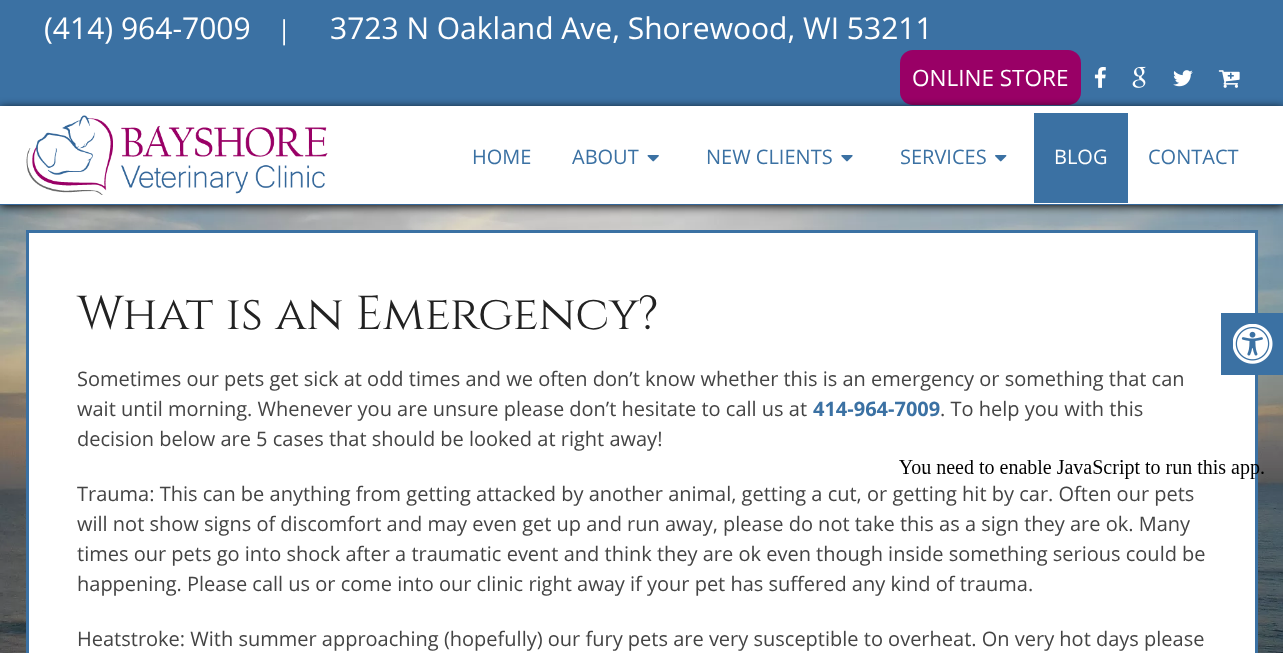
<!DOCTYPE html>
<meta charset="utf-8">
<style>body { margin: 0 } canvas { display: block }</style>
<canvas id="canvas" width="1283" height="653"></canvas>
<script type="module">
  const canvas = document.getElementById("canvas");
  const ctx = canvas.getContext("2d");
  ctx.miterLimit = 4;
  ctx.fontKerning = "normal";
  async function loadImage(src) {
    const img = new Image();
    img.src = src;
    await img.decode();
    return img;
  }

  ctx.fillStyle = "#ffffff";
  ctx.fillRect(0, 0, 1283, 653);
  ctx.drawImage(await loadImage("img1.png"), 0, 205, 1283, 448);
  ctx.fillStyle = "#3b71a3";
  ctx.fillRect(0, 0, 1283, 106);
  ctx.font = "30px Open Sans";
  ctx.fillStyle = "#ffffff";
  ctx.fillText("(414) 964-7009", 44, 39);
  ctx.font = "26px Open Sans";
  ctx.fillText("|", 277, 39);
  ctx.font = "30px Open Sans";
  ctx.fillText("3723 N Oakland Ave, Shorewood, WI 53211", 330, 39);
  ctx.fillStyle = "#990066";
  ctx.beginPath();
  ctx.roundRect(900, 50, 181, 55, 13);
  ctx.fill();
  ctx.font = "22.5px Open Sans";
  ctx.fillStyle = "#ffffff";
  ctx.fillText("ONLINE STORE", 912, 86);
  ctx.drawImage(await loadImage("img2.png"), 1094, 67, 12, 21);
  ctx.drawImage(await loadImage("img3.png"), 1132, 66, 14, 22);
  ctx.drawImage(await loadImage("img4.png"), 1173, 70, 20, 17);
  ctx.drawImage(await loadImage("img5.png"), 1218, 70, 22, 18);
  ctx.fillStyle = "#000000";
  ctx.filter = "blur(5px)";
  ctx.beginPath();
  ctx.rect(0, 108, 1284, 98);
  ctx.fill();
  ctx.filter = "none";
  ctx.fillStyle = "#ffffff";
  ctx.fillRect(0, 106, 1283, 98);
  ctx.fillStyle = "#336699";
  ctx.fillRect(0, 204, 1283, 1);
  ctx.drawImage(await loadImage("img6.png"), 26, 115, 302, 80);
  ctx.font = "20px Open Sans";
  ctx.fillStyle = "#3b71a3";
  ctx.fillText("HOME", 472, 164);
  ctx.fillText("ABOUT", 572, 164);
  ctx.drawImage(await loadImage("img7.png"), 647, 155, 12, 7);
  ctx.fillText("NEW CLIENTS", 706, 164);
  ctx.drawImage(await loadImage("img8.png"), 841, 155, 12, 7);
  ctx.fillText("SERVICES", 900, 164);
  ctx.drawImage(await loadImage("img9.png"), 995, 155, 12, 7);
  ctx.fillRect(1034, 113, 94, 90);
  ctx.fillStyle = "#ffffff";
  ctx.fillText("BLOG", 1054, 164);
  ctx.fillStyle = "#3b71a3";
  ctx.fillText("CONTACT", 1148, 164);
  ctx.fillStyle = "#ffffff";
  ctx.beginPath();
  ctx.rect(27.5, 231.5, 1229, 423);
  ctx.fill();
  ctx.strokeStyle = "#3b71a3";
  ctx.lineWidth = 3;
  ctx.stroke();
  ctx.font = "47.5px Cinzel";
  ctx.fillStyle = "#222222";
  ctx.fillText("What is an Emergency?", 77, 329);
  ctx.font = "20px Open Sans";
  ctx.fillStyle = "#444444";
  ctx.fillText("Sometimes our pets get sick at odd times and we often don’t know whether this is an emergency or something that can", 77, 386);
  ctx.fillText("wait until morning. Whenever you are unsure please don’t hesitate to call us at", 77, 416);
  ctx.font = "bold 20px Open Sans";
  ctx.fillStyle = "#3b71a3";
  ctx.fillText("414-964-7009", 813, 416);
  ctx.font = "20px Open Sans";
  ctx.fillStyle = "#444444";
  ctx.fillText(". To help you with this", 940, 416);
  ctx.fillText("decision below are 5 cases that should be looked at right away!", 77, 446);
  ctx.fillText("Trauma: This can be anything from getting attacked by another animal, getting a cut, or getting hit by car. Often our pets", 77, 501);
  ctx.fillText("will not show signs of discomfort and may even get up and run away, please do not take this as a sign they are ok. Many", 77, 531);
  ctx.fillText("times our pets go into shock after a traumatic event and think they are ok even though inside something serious could be", 77, 561);
  ctx.fillText("happening. Please call us or come into our clinic right away if your pet has suffered any kind of trauma.", 77, 591);
  ctx.fillText("Heatstroke: With summer approaching (hopefully) our fury pets are very susceptible to overheat. On very hot days please", 77, 646);
  ctx.fillStyle = "#3b71a3";
  ctx.fillRect(1221, 313, 62, 62);
  ctx.drawImage(await loadImage("img10.png"), 1233, 324, 40, 40);
  ctx.drawImage(await loadImage("img11.png"), 899, 460, 365, 19);
</script>
